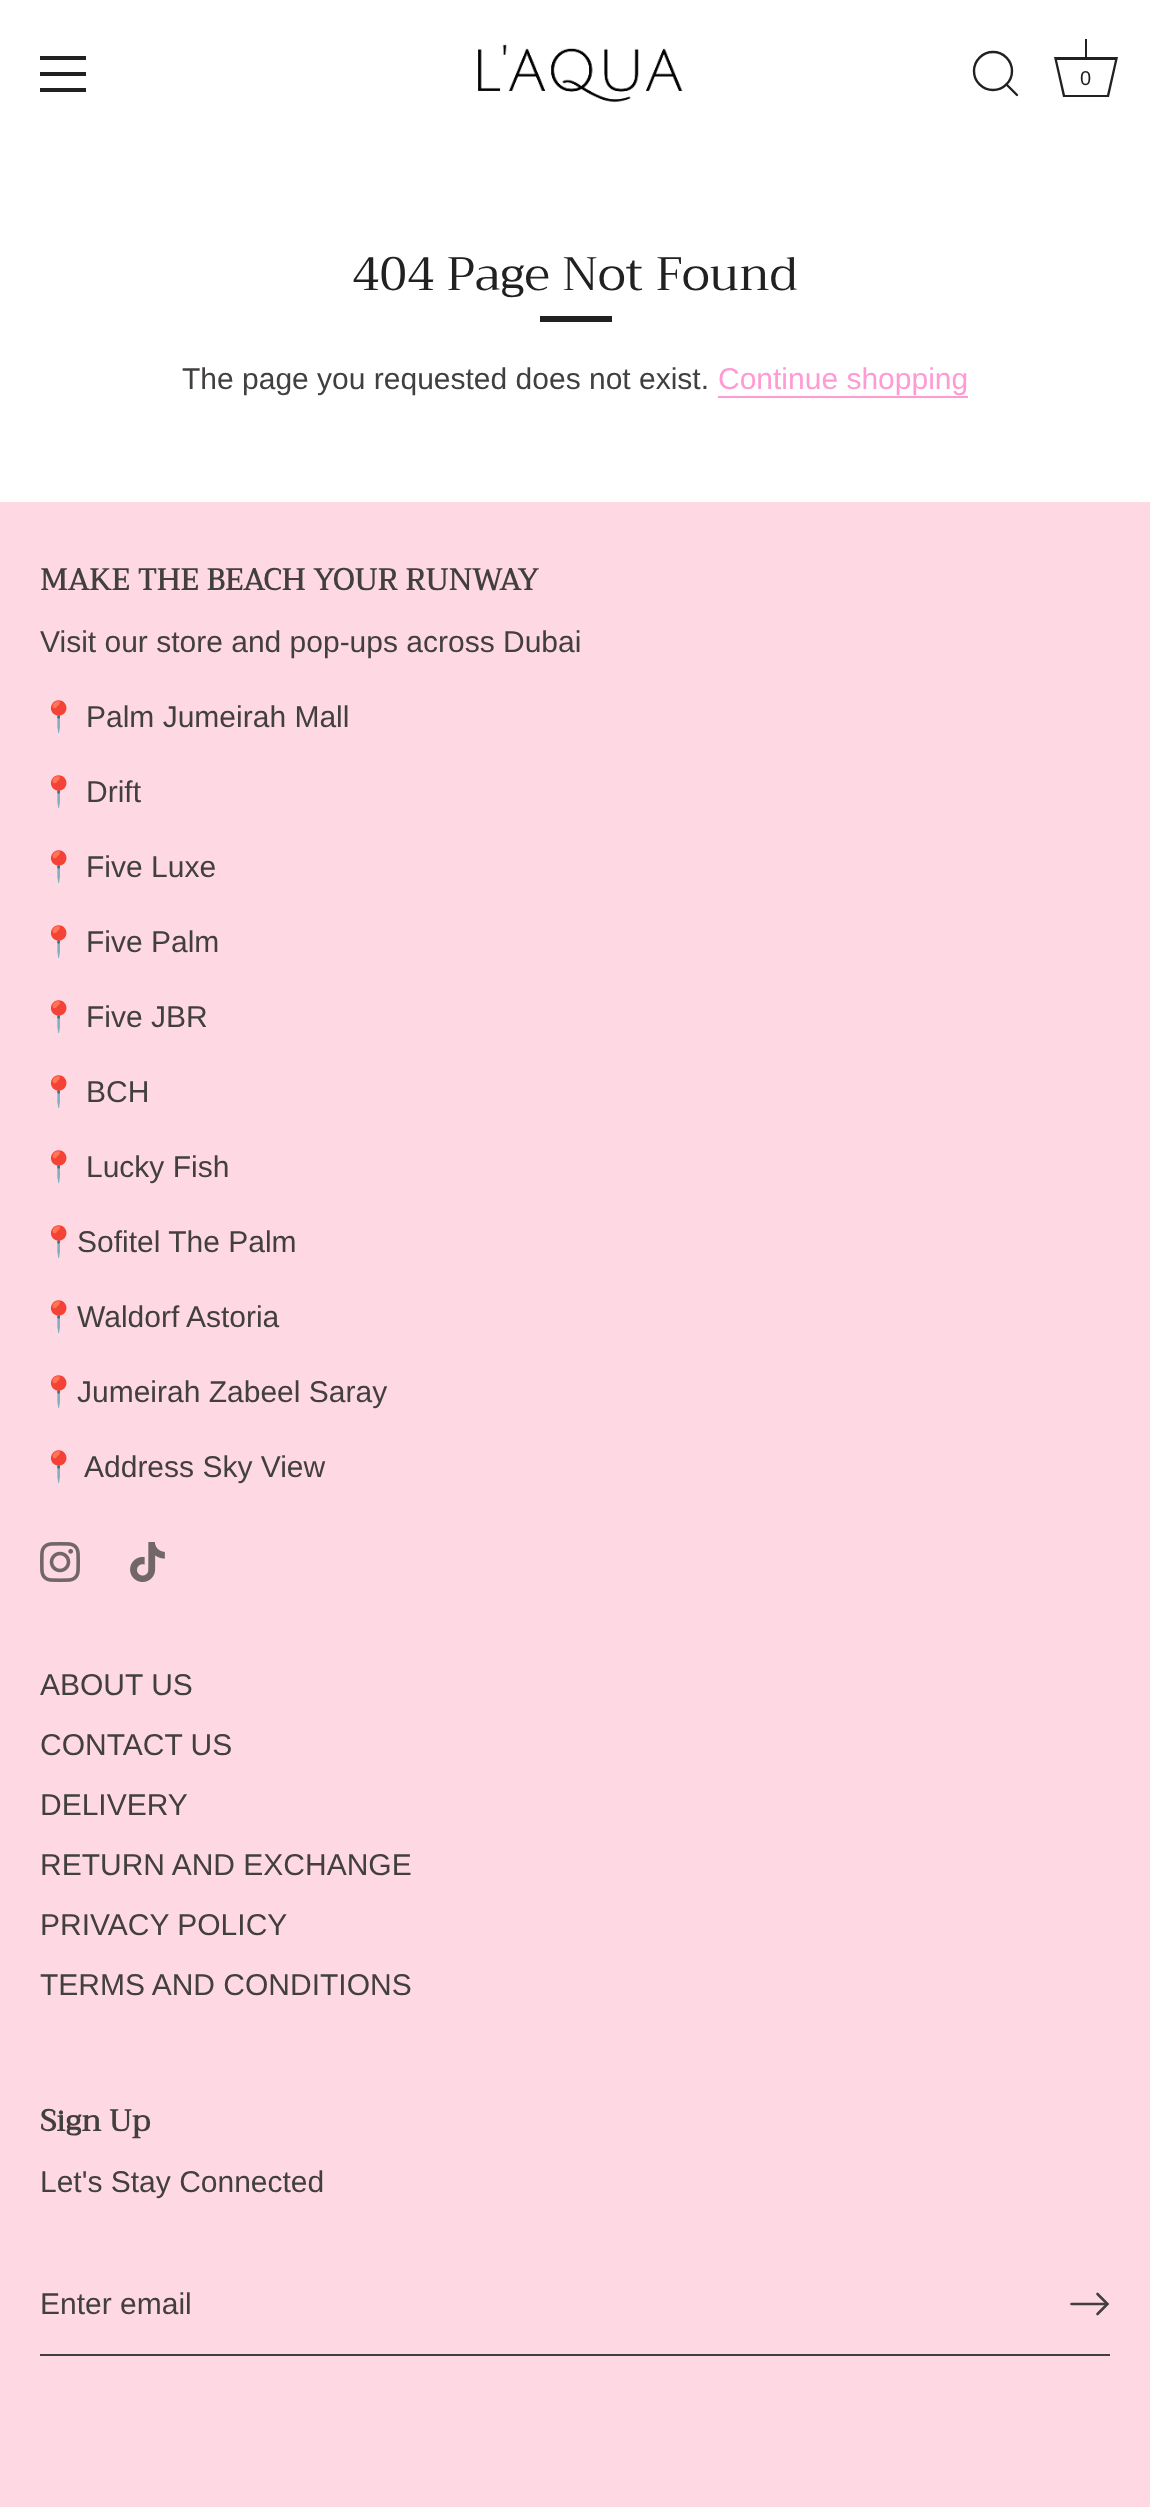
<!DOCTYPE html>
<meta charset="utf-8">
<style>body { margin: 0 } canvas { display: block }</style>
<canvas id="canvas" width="1150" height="2507"></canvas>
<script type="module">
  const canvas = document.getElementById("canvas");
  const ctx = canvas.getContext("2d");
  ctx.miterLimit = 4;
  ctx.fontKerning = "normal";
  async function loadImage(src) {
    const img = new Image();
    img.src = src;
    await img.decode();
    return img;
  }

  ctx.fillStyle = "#ffffff";
  ctx.fillRect(0, 0, 1150, 2507);
  ctx.fillStyle = "#212121";
  ctx.fillRect(40, 56, 46, 4);
  ctx.fillRect(40, 72, 46, 4);
  ctx.fillRect(40, 88, 46, 4);
  ctx.drawImage(await loadImage("img1.png"), 478, 44, 205, 59);
  ctx.beginPath();
  ctx.arc(993, 71, 19, 0, Math.PI * 2);
  ctx.strokeStyle = "#212121";
  ctx.lineWidth = 2.4;
  ctx.stroke();
  ctx.beginPath();
  ctx.moveTo(1017, 95);
  ctx.lineTo(1006.5, 84.5);
  ctx.lineCap = "round";
  ctx.lineJoin = "round";
  ctx.stroke();
  ctx.fillRect(1085, 39, 2, 18);
  ctx.beginPath();
  ctx.moveTo(1115, 60);
  ctx.lineTo(1107, 95);
  ctx.lineTo(1065, 95);
  ctx.lineTo(1057, 60);
  ctx.lineTo(1115, 60);
  ctx.moveTo(1118, 57);
  ctx.lineTo(1054, 57);
  ctx.lineTo(1063, 97);
  ctx.lineTo(1109, 97);
  ctx.closePath();
  ctx.fill();
  ctx.font = "20px Liberation Sans";
  ctx.fillText("0", 1080, 85);
  ctx.font = "46.75px Trirong";
  ctx.fillText("404 Page Not Found", 352, 290);
  ctx.fillRect(540, 316, 72, 6);
  ctx.font = "30px Liberation Sans";
  ctx.fillStyle = "#423f3f";
  ctx.fillText("The page you requested does not exist.", 182, 389);
  ctx.fillStyle = "#ff9ad4";
  ctx.fillText("Continue shopping", 718, 389);
  ctx.fillRect(718, 396, 250, 2);
  ctx.fillStyle = "#fed9e3";
  ctx.fillRect(0, 502, 1150, 2005);
  ctx.font = "bold 30px Trirong";
  ctx.fillStyle = "#423f3f";
  ctx.fillText("MAKE THE BEACH YOUR RUNWAY", 40, 590);
  ctx.font = "30px Liberation Sans";
  ctx.fillText("Visit our store and pop-ups across Dubai", 40, 652);
  ctx.font = "30px Noto Color Emoji";
  ctx.fillText("📍", 40, 727);
  ctx.font = "30px Liberation Sans";
  ctx.fillText("Palm Jumeirah Mall", 86, 727);
  ctx.font = "30px Noto Color Emoji";
  ctx.fillText("📍", 40, 802);
  ctx.font = "30px Liberation Sans";
  ctx.fillText("Drift", 86, 802);
  ctx.font = "30px Noto Color Emoji";
  ctx.fillText("📍", 40, 877);
  ctx.font = "30px Liberation Sans";
  ctx.fillText("Five Luxe", 86, 877);
  ctx.font = "30px Noto Color Emoji";
  ctx.fillText("📍", 40, 952);
  ctx.font = "30px Liberation Sans";
  ctx.fillText("Five Palm", 86, 952);
  ctx.font = "30px Noto Color Emoji";
  ctx.fillText("📍", 40, 1027);
  ctx.font = "30px Liberation Sans";
  ctx.fillText("Five JBR", 86, 1027);
  ctx.font = "30px Noto Color Emoji";
  ctx.fillText("📍", 40, 1102);
  ctx.font = "30px Liberation Sans";
  ctx.fillText("BCH", 86, 1102);
  ctx.font = "30px Noto Color Emoji";
  ctx.fillText("📍", 40, 1177);
  ctx.font = "30px Liberation Sans";
  ctx.fillText("Lucky Fish", 86, 1177);
  ctx.font = "30px Noto Color Emoji";
  ctx.fillText("📍", 40, 1252);
  ctx.font = "30px Liberation Sans";
  ctx.fillText("Sofitel The Palm", 77, 1252);
  ctx.font = "30px Noto Color Emoji";
  ctx.fillText("📍", 40, 1327);
  ctx.font = "30px Liberation Sans";
  ctx.fillText("Waldorf Astoria", 77, 1327);
  ctx.font = "30px Noto Color Emoji";
  ctx.fillText("📍", 40, 1402);
  ctx.font = "30px Liberation Sans";
  ctx.fillText("Jumeirah Zabeel Saray", 77, 1402);
  ctx.font = "30px Noto Color Emoji";
  ctx.fillText("📍", 40, 1477);
  ctx.font = "30px Liberation Sans";
  ctx.fillText("Address Sky View", 84, 1477);
  ctx.drawImage(await loadImage("img2.png"), 40, 1542, 40, 40);
  ctx.drawImage(await loadImage("img3.png"), 130, 1542, 35, 40);
  ctx.fillText("ABOUT US", 40, 1695);
  ctx.fillText("CONTACT US", 40, 1755);
  ctx.fillText("DELIVERY", 40, 1815);
  ctx.fillText("RETURN AND EXCHANGE", 40, 1875);
  ctx.fillText("PRIVACY POLICY", 40, 1935);
  ctx.fillText("TERMS AND CONDITIONS", 40, 1995);
  ctx.font = "bold 30px Trirong";
  ctx.fillText("Sign Up", 40, 2131);
  ctx.font = "30px Liberation Sans";
  ctx.fillText("Let's Stay Connected", 40, 2192);
  ctx.fillRect(40, 2354, 1070, 2);
  ctx.fillText("Enter email", 40, 2314);
  ctx.beginPath();
  ctx.moveTo(1097.5, 2314);
  ctx.lineTo(1107.5, 2304);
  ctx.lineTo(1097.5, 2294);
  ctx.strokeStyle = "#423f3f";
  ctx.lineWidth = 2.6;
  ctx.lineJoin = "miter";
  ctx.stroke();
  ctx.beginPath();
  ctx.moveTo(1106.5, 2304);
  ctx.lineTo(1071.5, 2304);
  ctx.lineJoin = "round";
  ctx.stroke();
</script>
